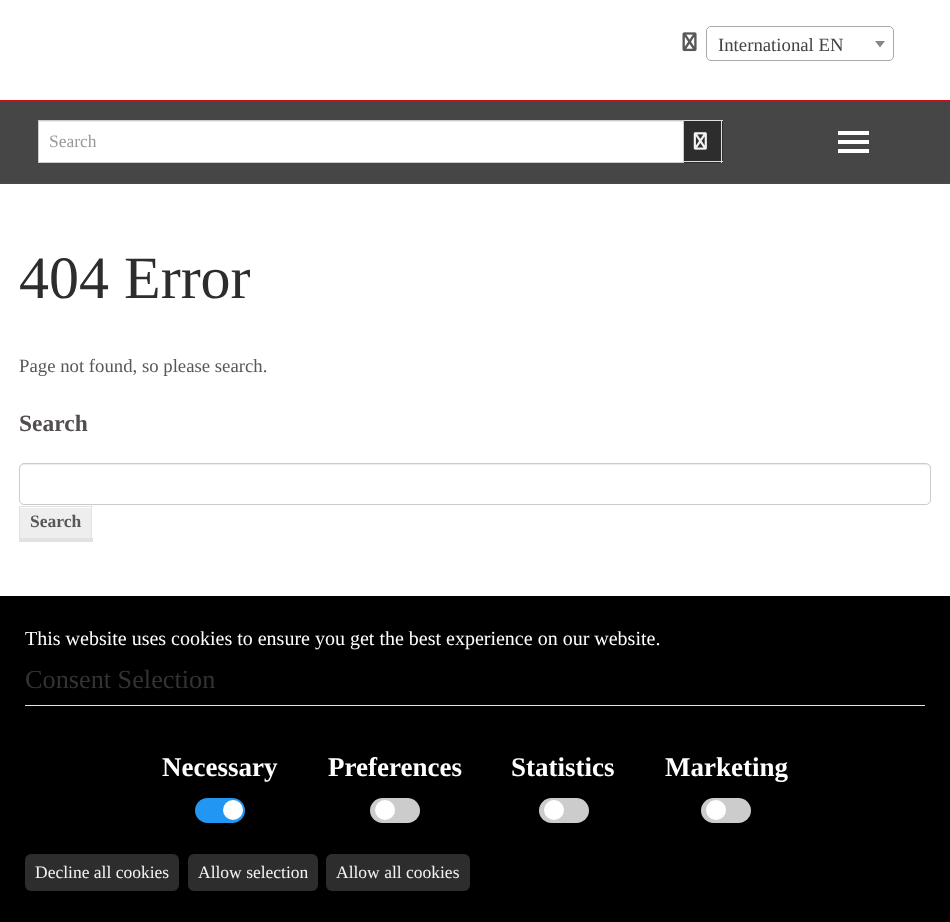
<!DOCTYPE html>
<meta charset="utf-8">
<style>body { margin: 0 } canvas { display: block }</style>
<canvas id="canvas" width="950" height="922"></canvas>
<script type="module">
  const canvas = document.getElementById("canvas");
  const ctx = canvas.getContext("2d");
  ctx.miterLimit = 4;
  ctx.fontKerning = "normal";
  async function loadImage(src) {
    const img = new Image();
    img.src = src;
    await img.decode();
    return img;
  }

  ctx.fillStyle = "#ffffff";
  ctx.fillRect(0, 0, 950, 922);
  ctx.fillStyle = "#c4151c";
  ctx.fillRect(0, 183, 950, 1);
  ctx.drawImage(await loadImage("img1.png"), 682, 32, 15, 20);
  ctx.beginPath();
  ctx.roundRect(706.5, 26.5, 187, 34, 4.5);
  ctx.strokeStyle = "#aaaaaa";
  ctx.stroke();
  ctx.font = "18.75px Liberation Serif";
  ctx.fillStyle = "#444444";
  ctx.fillText("International EN", 718, 51);
  ctx.fillStyle = "#888888";
  ctx.beginPath();
  ctx.moveTo(875, 41);
  ctx.lineTo(885, 41);
  ctx.lineTo(880, 47.5);
  ctx.closePath();
  ctx.fill();
  ctx.fillStyle = "#000000";
  ctx.fillRect(0, 596, 950, 326);
  ctx.font = "20px Liberation Serif";
  ctx.fillStyle = "#ffffff";
  ctx.fillText("This website uses cookies to ensure you get the best experience on our website.", 25, 645);
  ctx.fillStyle = "#e5e5e5";
  ctx.fillRect(25, 705, 900, 1);
  ctx.font = "26.25px Liberation Serif";
  ctx.fillStyle = "#333333";
  ctx.fillText("Consent Selection", 25, 688);
  ctx.font = "bold 27px Liberation Serif";
  ctx.fillStyle = "#ffffff";
  ctx.fillText("Necessary", 162, 776);
  ctx.fillStyle = "#2196f3";
  ctx.beginPath();
  ctx.roundRect(195, 798, 50, 25, 12.5);
  ctx.fill();
  ctx.fillStyle = "#ffffff";
  ctx.beginPath();
  ctx.arc(233, 810, 10, 0, Math.PI * 2);
  ctx.fill();
  ctx.fillText("Preferences", 328, 776);
  ctx.fillStyle = "#cccccc";
  ctx.beginPath();
  ctx.roundRect(370, 798, 50, 25, 12.5);
  ctx.fill();
  ctx.fillStyle = "#ffffff";
  ctx.beginPath();
  ctx.arc(385, 810, 10, 0, Math.PI * 2);
  ctx.fill();
  ctx.fillText("Statistics", 511, 776);
  ctx.fillStyle = "#cccccc";
  ctx.beginPath();
  ctx.roundRect(539, 798, 50, 25, 12.5);
  ctx.fill();
  ctx.fillStyle = "#ffffff";
  ctx.beginPath();
  ctx.arc(554, 810, 10, 0, Math.PI * 2);
  ctx.fill();
  ctx.fillText("Marketing", 665, 776);
  ctx.fillStyle = "#cccccc";
  ctx.beginPath();
  ctx.roundRect(701, 798, 50, 25, 12.5);
  ctx.fill();
  ctx.fillStyle = "#ffffff";
  ctx.beginPath();
  ctx.arc(716, 810, 10, 0, Math.PI * 2);
  ctx.fill();
  ctx.fillStyle = "#2d2d2d";
  ctx.beginPath();
  ctx.roundRect(25, 854, 154, 37, 6);
  ctx.fill();
  ctx.font = "17.5px Liberation Serif";
  ctx.fillStyle = "#f3f3f2";
  ctx.fillText("Decline all cookies", 35, 878);
  ctx.fillStyle = "#2d2d2d";
  ctx.beginPath();
  ctx.roundRect(188, 854, 130, 37, 6);
  ctx.fill();
  ctx.fillStyle = "#f3f3f2";
  ctx.fillText("Allow selection", 198, 878);
  ctx.fillStyle = "#2d2d2d";
  ctx.beginPath();
  ctx.roundRect(326, 854, 144, 37, 6);
  ctx.fill();
  ctx.fillStyle = "#f3f3f2";
  ctx.fillText("Allow all cookies", 336, 878);
  ctx.fillStyle = "#464646";
  ctx.fillRect(0, 101, 950, 82);
  ctx.fillStyle = "#c4151c";
  ctx.fillRect(0, 100, 950, 1);
  ctx.fillStyle = "#ffffff";
  ctx.fillRect(39, 122, 644, 40);
  ctx.fillStyle = "#ececec";
  ctx.fillRect(39, 121, 644, 1);
  ctx.strokeStyle = "#cbcbcb";
  ctx.strokeRect(38.5, 120.5, 645, 42);
  ctx.fillStyle = "#999999";
  ctx.fillText("Search", 49, 147);
  ctx.fillStyle = "#2d2d2d";
  ctx.fillRect(684, 121, 39, 42);
  ctx.fillStyle = "#dddddd";
  ctx.fillRect(684, 120, 39, 1);
  ctx.fillRect(721, 120, 1, 43);
  ctx.fillRect(684, 161, 39, 1);
  ctx.drawImage(await loadImage("img2.png"), 693, 132, 14, 18);
  ctx.fillStyle = "#ffffff";
  ctx.fillRect(838, 131, 31, 4);
  ctx.fillRect(838, 140, 31, 4);
  ctx.fillRect(838, 149, 31, 4);
  ctx.font = "60px Liberation Serif";
  ctx.fillStyle = "#2d2d2d";
  ctx.fillText("404 Error", 19, 298);
  ctx.font = "18.75px Liberation Serif";
  ctx.fillStyle = "#595857";
  ctx.fillText("Page not found, so please search.", 19, 372);
  ctx.font = "bold 23.5px Liberation Serif";
  ctx.fillStyle = "#524e4d";
  ctx.fillText("Search", 19, 431);
  ctx.fillStyle = "#ececec";
  ctx.beginPath();
  ctx.moveTo(24, 465);
  ctx.lineTo(926, 465);
  ctx.bezierCurveTo(928, 465, 930, 467, 930, 469);
  ctx.bezierCurveTo(930, 466, 929, 464, 926, 464);
  ctx.lineTo(24, 464);
  ctx.bezierCurveTo(21, 464, 20, 466, 20, 469);
  ctx.bezierCurveTo(20, 467, 22, 465, 24, 465);
  ctx.closePath();
  ctx.fill();
  ctx.beginPath();
  ctx.roundRect(19.5, 463.5, 911, 41, 4.5);
  ctx.stroke();
  ctx.fillStyle = "#eeeeee";
  ctx.fillRect(20, 508, 71, 30);
  ctx.fillStyle = "#e2e2e2";
  ctx.fillRect(19, 506, 74, 1);
  ctx.fillRect(91, 506, 1, 35);
  ctx.fillRect(19, 538, 74, 4);
  ctx.fillRect(19, 506, 1, 35);
  ctx.font = "bold 17.5px Liberation Serif";
  ctx.fillStyle = "#595857";
  ctx.fillText("Search", 30, 527);
</script>
